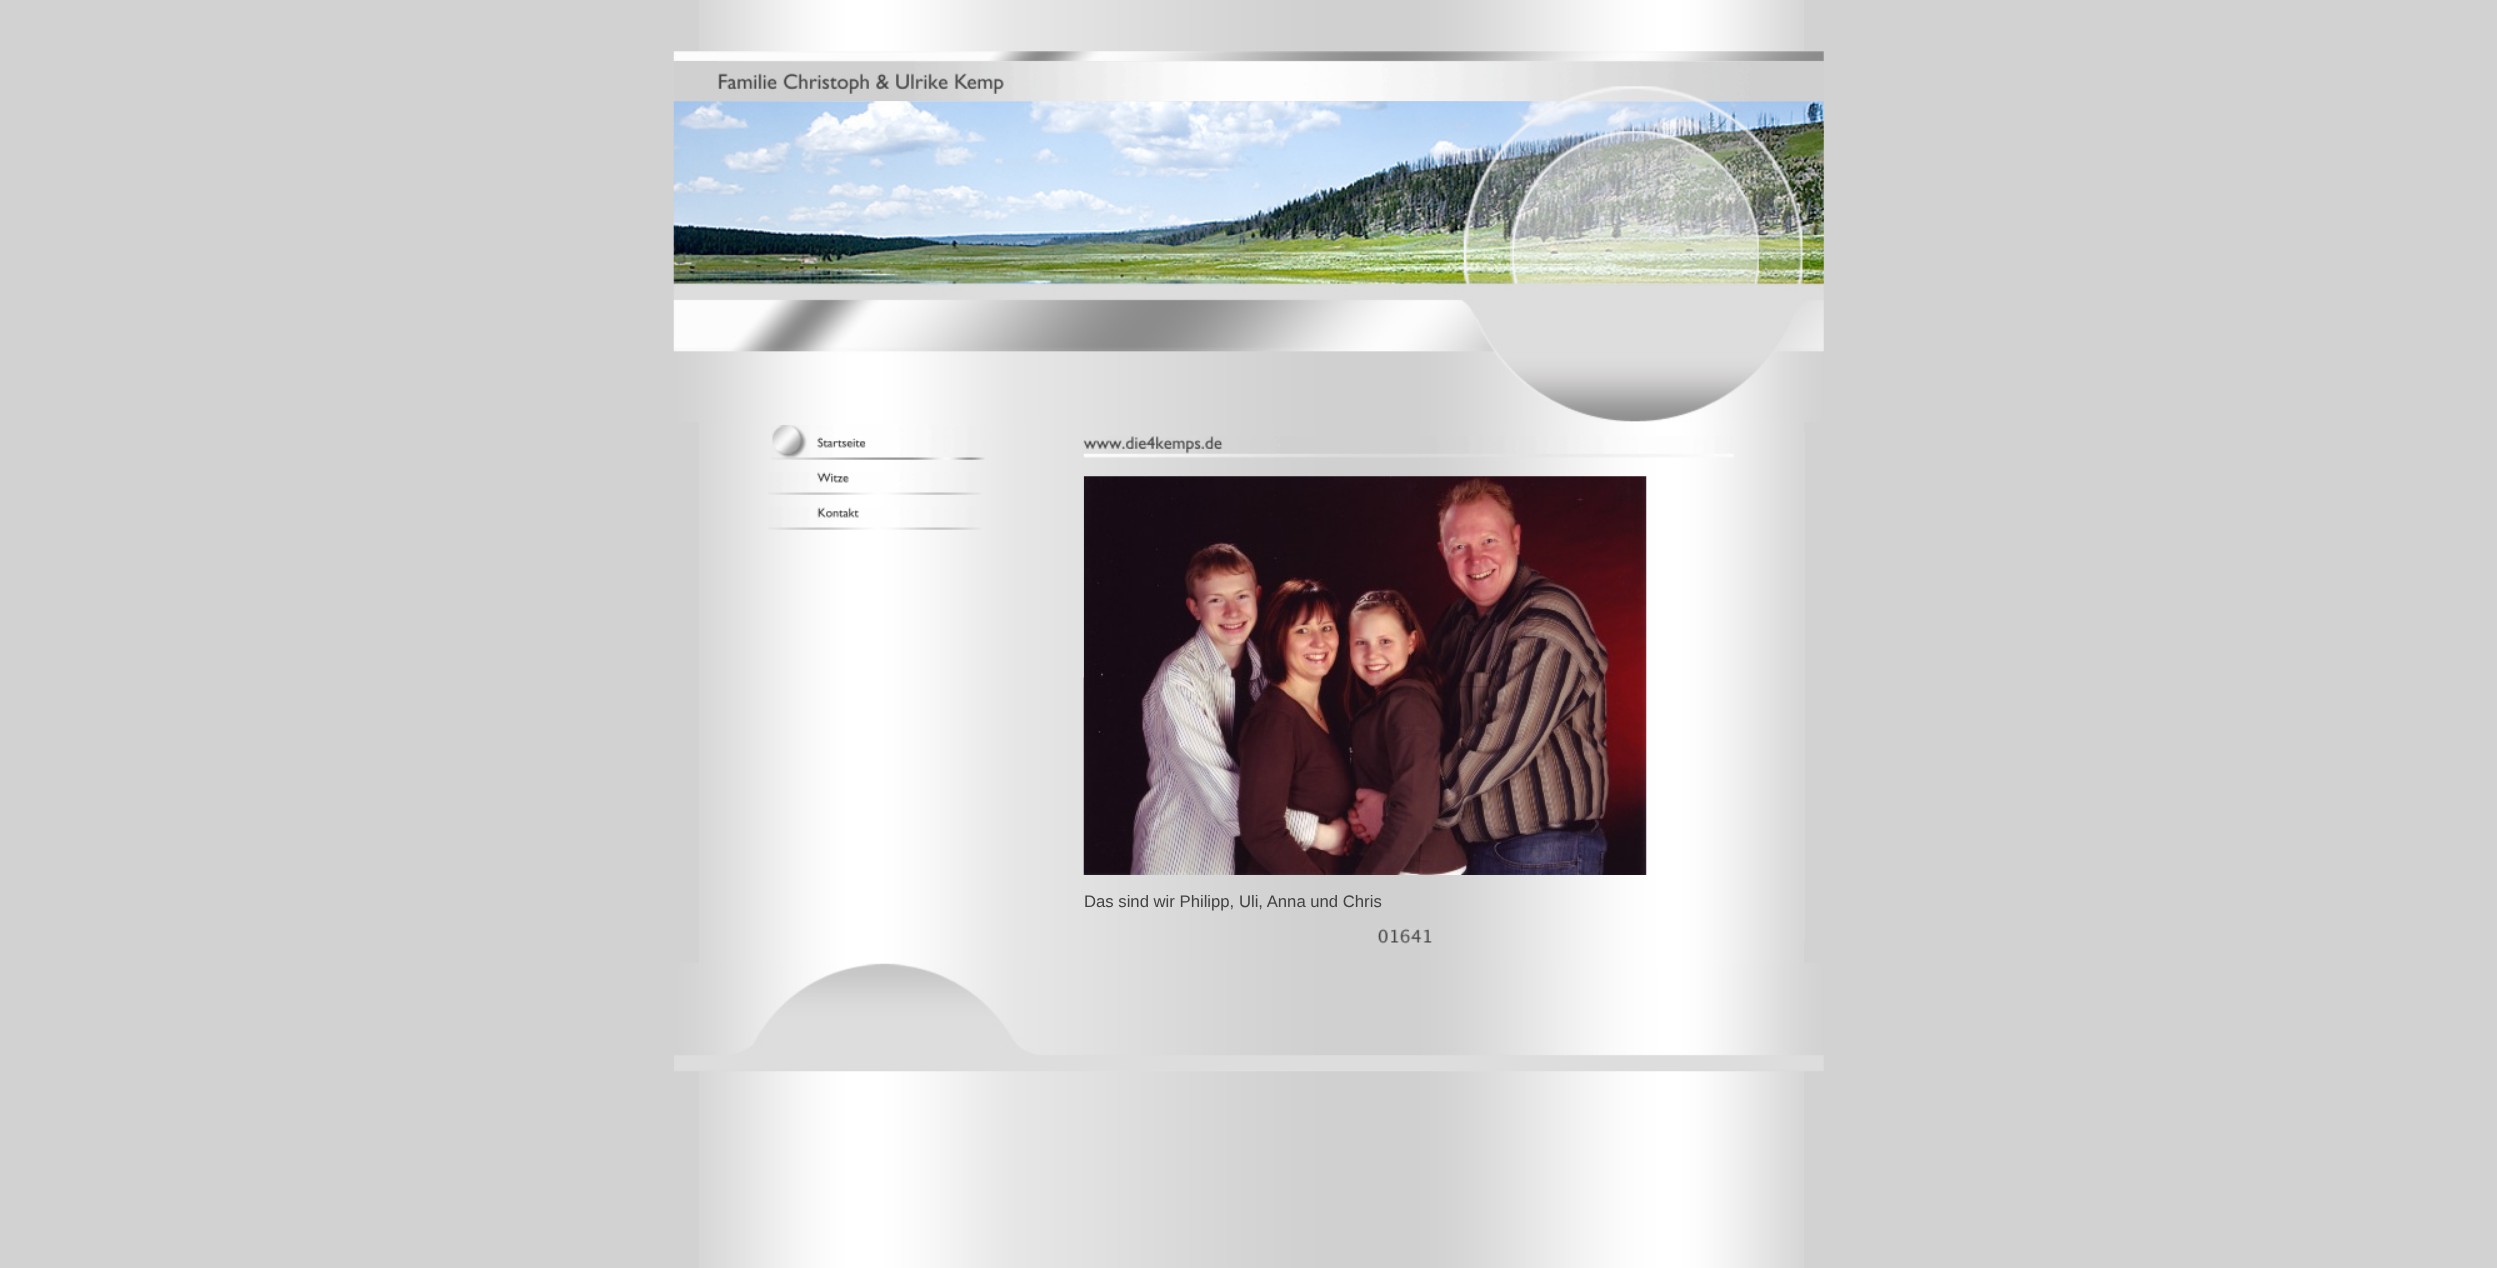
<!DOCTYPE html>
<meta charset="utf-8">
<style>body { margin: 0 } canvas { display: block }</style>
<canvas id="canvas" width="2497" height="1268"></canvas>
<script type="module">
  const canvas = document.getElementById("canvas");
  const ctx = canvas.getContext("2d");
  ctx.miterLimit = 4;
  ctx.fontKerning = "normal";
  async function loadImage(src) {
    const img = new Image();
    img.src = src;
    await img.decode();
    return img;
  }

  ctx.fillStyle = "#d2d2d2";
  ctx.fillRect(0, 0, 2497, 1268);
  ctx.drawImage(await loadImage("img1.png"), 699, 0, 1105, 1268);
  ctx.drawImage(await loadImage("img2.png"), 673, 51, 1151, 11);
  ctx.fillStyle = "#d0d0d0";
  ctx.fillRect(674, 61, 44, 40);
  ctx.drawImage(await loadImage("img3.png"), 718, 61, 1106, 41);
  ctx.drawImage(await loadImage("img4.png"), 673, 101, 1151, 183);
  ctx.drawImage(await loadImage("img5.png"), 673, 283, 1151, 139);
  ctx.drawImage(await loadImage("img6.png"), 771, 425, 214, 35);
  ctx.drawImage(await loadImage("img7.png"), 768, 472, 213, 23);
  ctx.drawImage(await loadImage("img8.png"), 768, 507, 213, 23);
  ctx.drawImage(await loadImage("img11.png"), 1083, 476, 564, 399);
  ctx.drawImage(await loadImage("img9.png"), 1083, 476, 1, 202);
  ctx.fillStyle = "#d6d6d6";
  ctx.fillRect(1804, 431, 1, 511);
  ctx.drawImage(await loadImage("img10.png"), 1083, 436, 651, 22);
  ctx.font = "16.7px Liberation Sans";
  ctx.fillStyle = "#424242";
  ctx.fillText("Das sind wir Philipp, Uli, Anna und Chris", 1084, 907);
  ctx.drawImage(await loadImage("img12.png"), 1377, 928, 55, 16);
  ctx.drawImage(await loadImage("img13.png"), 674, 963, 1150, 109);
</script>
